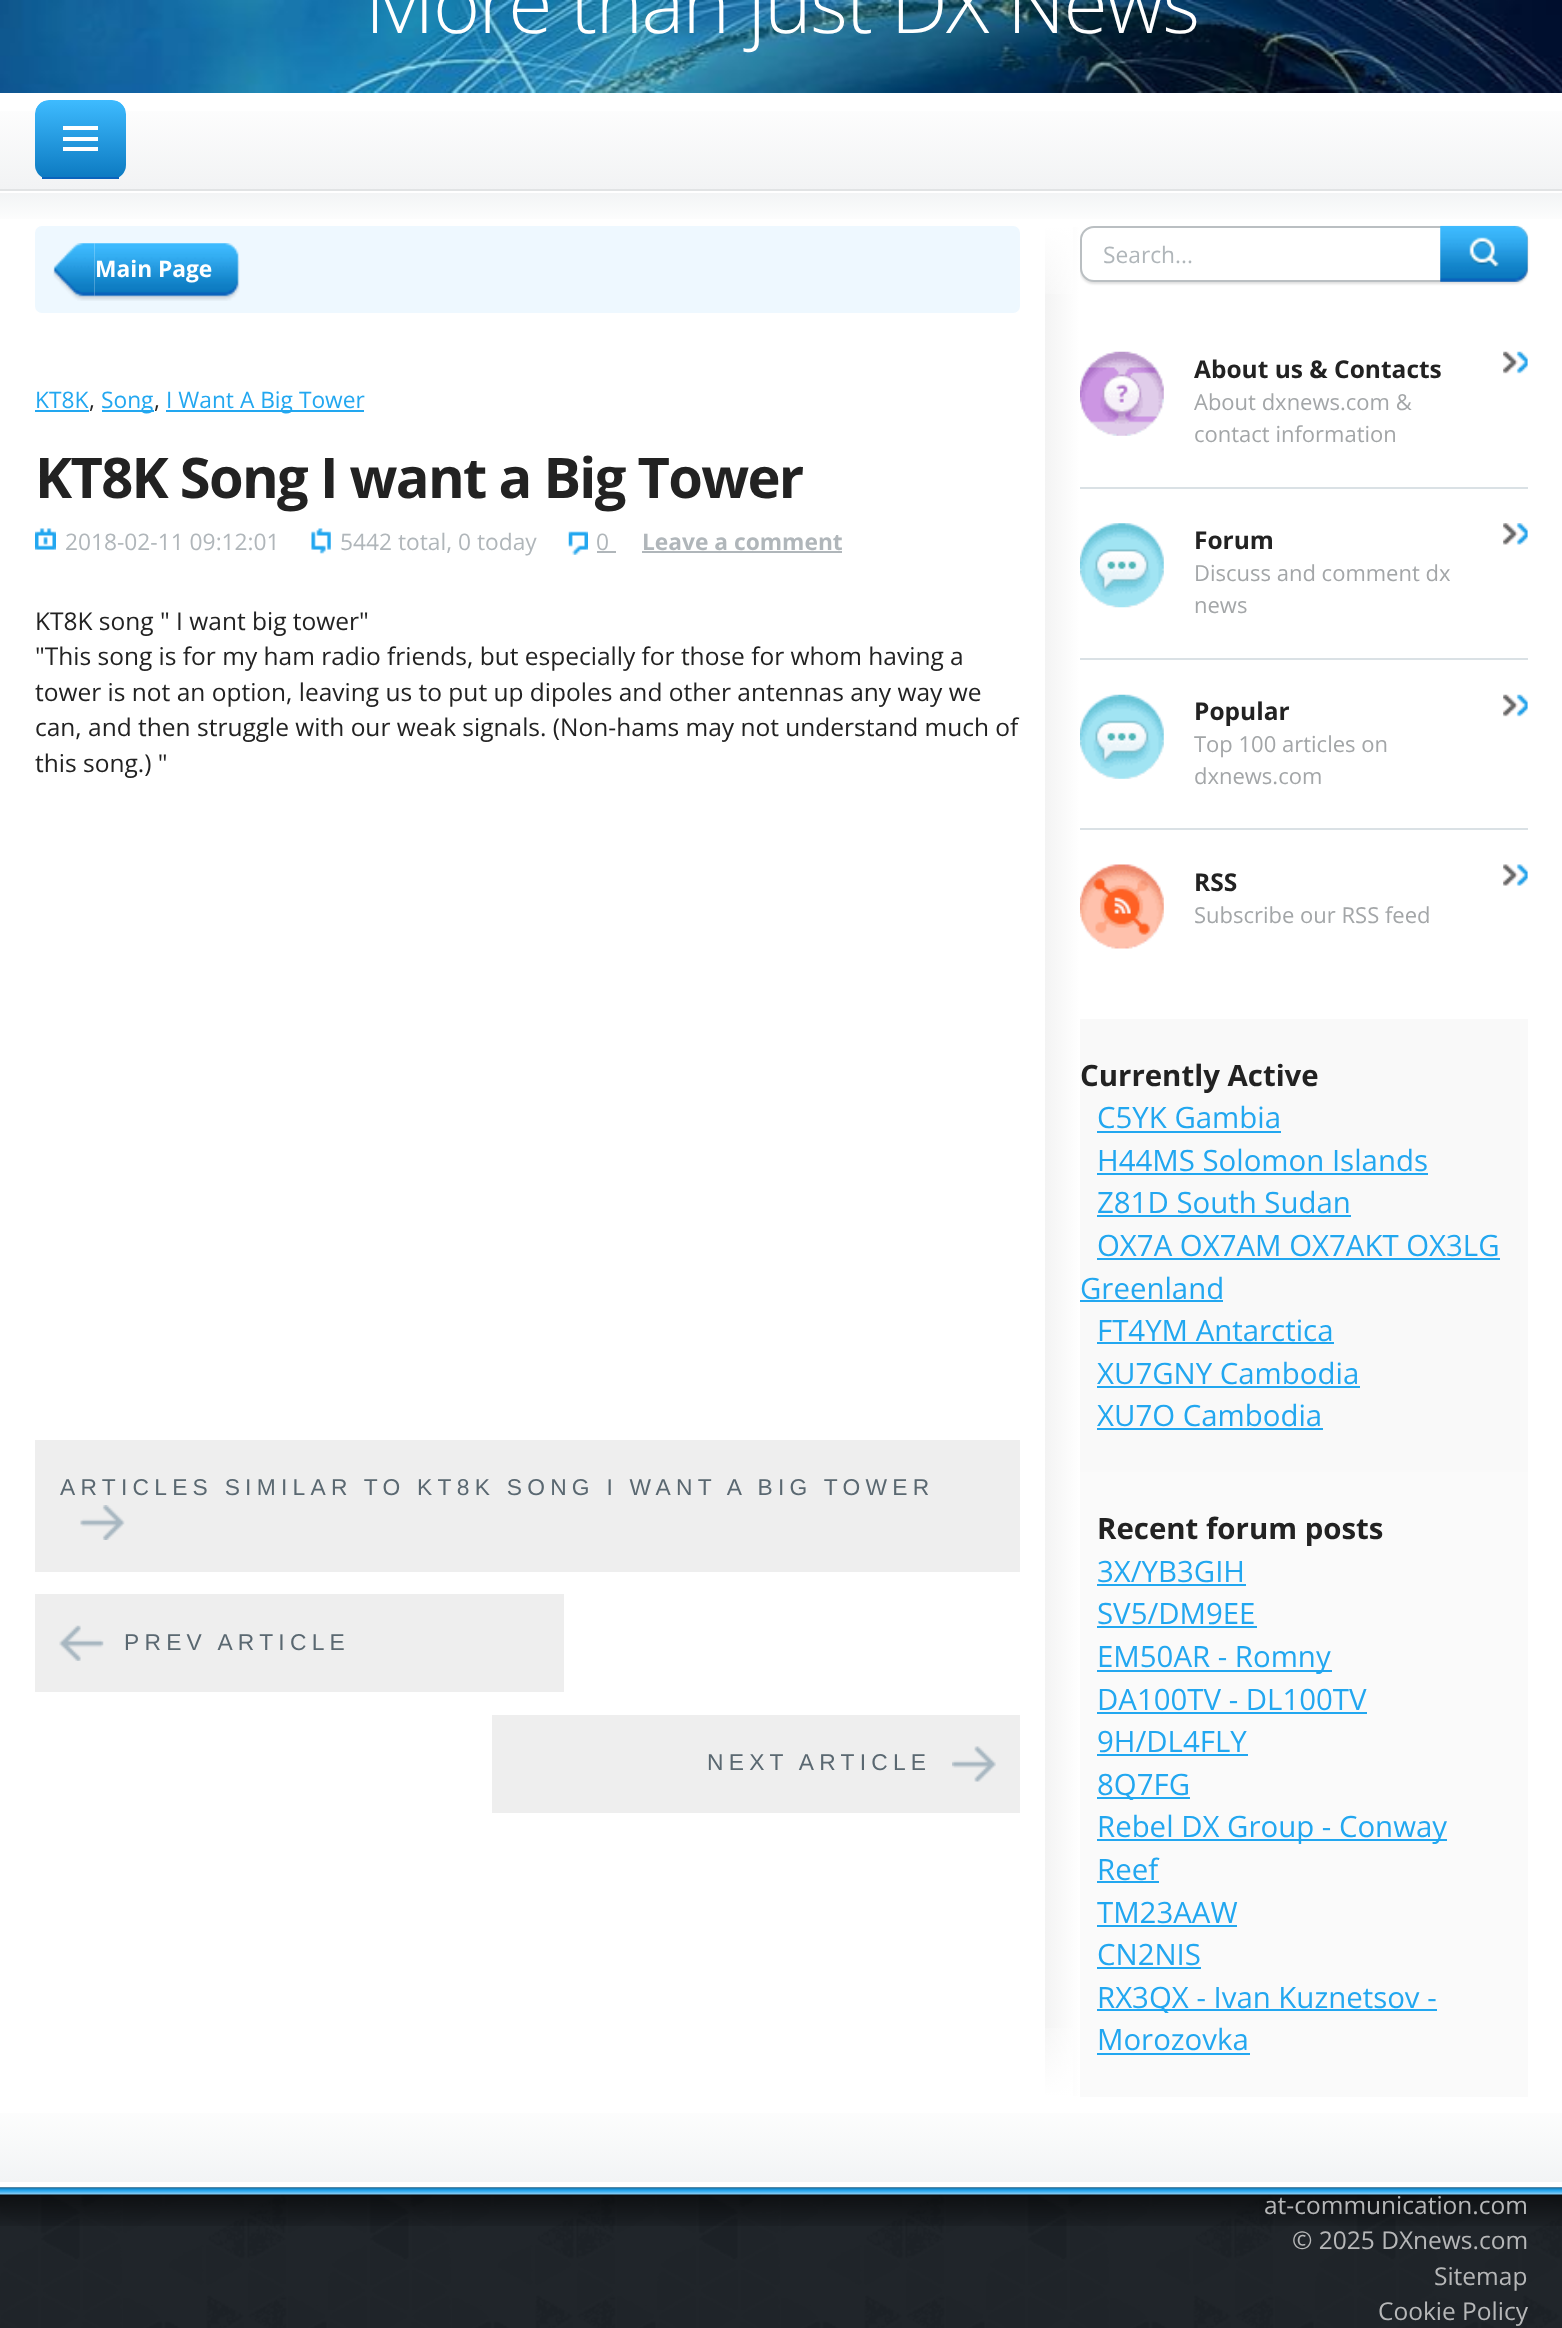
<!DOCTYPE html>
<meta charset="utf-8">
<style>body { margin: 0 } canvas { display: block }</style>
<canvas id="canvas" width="1562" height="2328"></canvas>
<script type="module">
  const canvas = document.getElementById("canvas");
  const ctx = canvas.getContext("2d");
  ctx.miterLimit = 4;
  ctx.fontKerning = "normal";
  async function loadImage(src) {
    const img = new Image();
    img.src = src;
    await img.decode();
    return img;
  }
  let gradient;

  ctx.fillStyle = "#ffffff";
  ctx.fillRect(0, 0, 1562, 2328);
  ctx.drawImage(await loadImage("img1.png"), 0, 0, 1562, 93);
  ctx.letterSpacing = "-1.6px";
  ctx.font = "300 80.5px Open Sans";
  ctx.fillText("More than just DX News", 365, 33);
  gradient = ctx.createLinearGradient(781, 93, 781, 189);
  gradient.addColorStop(0, "#ffffff");
  gradient.addColorStop(1, "#f2f3f4");
  ctx.fillStyle = gradient;
  ctx.fillRect(0, 111, 1562, 78);
  ctx.fillStyle = "#e1e3e4";
  ctx.fillRect(0, 189, 1562, 2);
  ctx.save();
  ctx.beginPath();
  ctx.roundRect(35, 100, 91, 79, 14);
  ctx.clip();
  gradient = ctx.createLinearGradient(81, 100, 81, 177);
  gradient.addColorStop(0, "#3ebbff");
  gradient.addColorStop(1, "#0d7bc2");
  ctx.fillStyle = gradient;
  ctx.beginPath();
  ctx.roundRect(35, 100, 91, 77, [14, 14, 0, 0]);
  ctx.fill();
  ctx.restore();
  ctx.fillStyle = "#0a63bc";
  ctx.fillRect(42, 177, 77, 2);
  ctx.fillStyle = "#ffffff";
  ctx.fillRect(63, 137, 35, 4);
  ctx.fillRect(63, 126, 35, 4);
  ctx.fillRect(63, 147, 35, 4);
  gradient = ctx.createLinearGradient(781, 192, 781, 226);
  gradient.addColorStop(0, "#f2f4f5");
  gradient.addColorStop(1, "#ffffff");
  ctx.fillStyle = gradient;
  ctx.fillRect(0, 193, 1562, 26);
  ctx.fillStyle = "rgba(0, 0, 0, 0.13)";
  ctx.filter = "blur(1px)";
  ctx.beginPath();
  ctx.roundRect(1080, 228, 448, 56, 14);
  ctx.fill();
  ctx.filter = "none";
  gradient = ctx.createLinearGradient(1045, 1161, 1080, 1161);
  gradient.addColorStop(0, "#f3f3f3");
  gradient.addColorStop(1, "#ffffff");
  ctx.fillStyle = gradient;
  ctx.fillRect(1045, 227, 35, 1869);
  gradient = ctx.createLinearGradient(1062, 226, 1062, 313);
  gradient.addColorStop(0, "#ffffff");
  gradient.addColorStop(1, "rgba(255, 255, 255, 0)");
  ctx.fillStyle = gradient;
  ctx.fillRect(1045, 227, 28, 67);
  gradient = ctx.createLinearGradient(1062, 2097, 1062, 2009);
  gradient.addColorStop(0, "#ffffff");
  gradient.addColorStop(1, "rgba(255, 255, 255, 0)");
  ctx.fillStyle = gradient;
  ctx.fillRect(1045, 2028, 28, 68);
  ctx.fillStyle = "#eef8ff";
  ctx.beginPath();
  ctx.roundRect(35, 226, 985, 87, 7);
  ctx.fill();
  ctx.drawImage(await loadImage("img3.png"), 94, 243, 146, 58);
  ctx.drawImage(await loadImage("img2.png"), 53, 243, 42, 58);
  ctx.letterSpacing = "0px";
  ctx.font = "bold 22.75px Open Sans";
  ctx.fillStyle = "#ffffff";
  ctx.fillText("Main Page", 95, 277);
  ctx.font = "22.75px Open Sans";
  ctx.fillStyle = "#22a7f0";
  ctx.fillText("KT8K", 35, 408);
  ctx.fillRect(35, 410, 54, 2);
  ctx.fillStyle = "#222222";
  ctx.fillText(",", 89, 408);
  ctx.fillStyle = "#22a7f0";
  ctx.fillRect(102, 410, 52, 2);
  ctx.fillText("Song", 101, 408);
  ctx.fillStyle = "#222222";
  ctx.fillText(",", 154, 408);
  ctx.fillStyle = "#22a7f0";
  ctx.fillRect(166, 410, 198, 2);
  ctx.fillText("I Want A Big Tower", 166, 408);
  ctx.letterSpacing = "-1.7px";
  ctx.font = "bold 56px Open Sans";
  ctx.fillStyle = "#222222";
  ctx.fillText("KT8K Song I want a Big Tower", 35, 498);
  ctx.drawImage(await loadImage("img4.png"), 35, 528, 21, 22);
  ctx.letterSpacing = "0px";
  ctx.font = "22.75px Open Sans";
  ctx.fillStyle = "#b0b6ba";
  ctx.fillText("2018-02-11 09:12:01", 65, 550);
  ctx.drawImage(await loadImage("img5.png"), 311, 528, 20, 26);
  ctx.fillText("5442 total, 0 today", 340, 550);
  ctx.drawImage(await loadImage("img6.png"), 568, 531, 20, 24);
  ctx.fillText("0", 596, 550);
  ctx.fillRect(597, 551, 19, 2);
  ctx.font = "bold 22.75px Open Sans";
  ctx.fillText("Leave a comment", 642, 550);
  ctx.fillRect(642, 551, 200, 2);
  ctx.font = "24.5px Open Sans";
  ctx.fillStyle = "#222222";
  ctx.fillText("KT8K song \" I want big tower\"", 35, 630);
  ctx.fillText("\"This song is for my ham radio friends, but especially for those for whom having a", 35, 665);
  ctx.fillText("tower is not an option, leaving us to put up dipoles and other antennas any way we", 35, 701);
  ctx.fillText("can, and then struggle with our weak signals. (Non-hams may not understand much of", 35, 736);
  ctx.fillText("this song.) \"", 35, 772);
  ctx.fillStyle = "#eeeeee";
  ctx.fillRect(35, 1440, 985, 132);
  ctx.letterSpacing = "5.25px";
  ctx.font = "22.8px Liberation Sans";
  ctx.fillStyle = "#5a6871";
  ctx.fillText("ARTICLES SIMILAR TO KT8K SONG I WANT A BIG TOWER", 60, 1495);
  ctx.drawImage(await loadImage("img7.png"), 80, 1505, 45, 35);
  ctx.fillStyle = "#eeeeee";
  ctx.fillRect(35, 1594, 529, 98);
  ctx.drawImage(await loadImage("img8.png"), 59, 1625, 45, 36);
  ctx.fillStyle = "#5a6871";
  ctx.fillText("PREV ARTICLE", 124, 1650);
  ctx.fillStyle = "#eeeeee";
  ctx.fillRect(492, 1715, 528, 98);
  ctx.fillStyle = "#5a6871";
  ctx.fillText("NEXT ARTICLE", 707, 1770);
  ctx.drawImage(await loadImage("img9.png"), 952, 1746, 44, 36);
  ctx.fillStyle = "#ffffff";
  ctx.beginPath();
  ctx.roundRect(1081, 227, 446, 54, 13);
  ctx.fill();
  ctx.strokeStyle = "#babfc2";
  ctx.lineWidth = 2;
  ctx.stroke();
  ctx.letterSpacing = "0px";
  ctx.font = "22.75px Open Sans";
  ctx.fillStyle = "#b0b6ba";
  ctx.fillText("Search...", 1103, 263);
  ctx.drawImage(await loadImage("img10.png"), 1440, 225, 88, 57);
  ctx.drawImage(await loadImage("img11.png"), 1080, 351, 84, 85);
  ctx.font = "bold 24.5px Open Sans";
  ctx.fillStyle = "#222222";
  ctx.fillText("About us & Contacts", 1194, 378);
  ctx.drawImage(await loadImage("img12.png"), 1503, 351, 25, 23);
  ctx.font = "22px Open Sans";
  ctx.fillStyle = "#a3a6a8";
  ctx.fillText("About dxnews.com &", 1194, 410);
  ctx.fillText("contact information", 1194, 442);
  ctx.fillStyle = "#dae1e5";
  ctx.fillRect(1080, 487, 448, 2);
  ctx.drawImage(await loadImage("img13.png"), 1080, 523, 84, 85);
  ctx.font = "bold 24.5px Open Sans";
  ctx.fillStyle = "#222222";
  ctx.fillText("Forum", 1194, 549);
  ctx.drawImage(await loadImage("img14.png"), 1503, 523, 25, 22);
  ctx.font = "22px Open Sans";
  ctx.fillStyle = "#a3a6a8";
  ctx.fillText("Discuss and comment dx", 1194, 581);
  ctx.fillText("news", 1194, 613);
  ctx.fillStyle = "#dae1e5";
  ctx.fillRect(1080, 658, 448, 2);
  ctx.drawImage(await loadImage("img15.png"), 1080, 694, 84, 85);
  ctx.font = "bold 24.5px Open Sans";
  ctx.fillStyle = "#222222";
  ctx.fillText("Popular", 1194, 720);
  ctx.drawImage(await loadImage("img12.png"), 1503, 694, 25, 23);
  ctx.font = "22px Open Sans";
  ctx.fillStyle = "#a3a6a8";
  ctx.fillText("Top 100 articles on", 1194, 752);
  ctx.fillText("dxnews.com", 1194, 784);
  ctx.fillStyle = "#dae1e5";
  ctx.fillRect(1080, 828, 448, 2);
  ctx.drawImage(await loadImage("img16.png"), 1080, 864, 84, 85);
  ctx.font = "bold 24.5px Open Sans";
  ctx.fillStyle = "#222222";
  ctx.fillText("RSS", 1194, 891);
  ctx.drawImage(await loadImage("img17.png"), 1503, 864, 25, 22);
  ctx.font = "22px Open Sans";
  ctx.fillStyle = "#a3a6a8";
  ctx.fillText("Subscribe our RSS feed", 1194, 923);
  ctx.fillStyle = "#f9f9f9";
  ctx.fillRect(1080, 1019, 448, 453);
  ctx.font = "bold 29.4px Open Sans";
  ctx.fillStyle = "#222222";
  ctx.fillText("Currently Active", 1080, 1086);
  ctx.font = "29.4px Open Sans";
  ctx.fillStyle = "#22a7f0";
  ctx.fillText("C5YK Gambia", 1097, 1128);
  ctx.fillRect(1097, 1131, 184, 2);
  ctx.fillText("H44MS Solomon Islands", 1097, 1171);
  ctx.fillRect(1097, 1173, 331, 2);
  ctx.fillText("Z81D South Sudan", 1097, 1213);
  ctx.fillRect(1097, 1215, 254, 2);
  ctx.fillText("OX7A OX7AM OX7AKT OX3LG", 1097, 1256);
  ctx.fillRect(1097, 1258, 403, 2);
  ctx.fillText("Greenland", 1080, 1299);
  ctx.fillRect(1080, 1300, 143, 2);
  ctx.fillText("FT4YM Antarctica", 1097, 1341);
  ctx.fillRect(1097, 1342, 237, 2);
  ctx.fillText("XU7GNY Cambodia", 1097, 1384);
  ctx.fillRect(1097, 1386, 263, 2);
  ctx.fillText("XU7O Cambodia", 1097, 1426);
  ctx.fillRect(1097, 1428, 226, 2);
  ctx.fillStyle = "#fafafa";
  ctx.fillRect(1080, 1472, 448, 625);
  ctx.font = "bold 29.4px Open Sans";
  ctx.fillStyle = "#222222";
  ctx.fillText("Recent forum posts", 1097, 1539);
  ctx.font = "29.4px Open Sans";
  ctx.fillStyle = "#22a7f0";
  ctx.fillText("3X/YB3GIH", 1097, 1582);
  ctx.fillRect(1097, 1584, 149, 2);
  ctx.fillText("SV5/DM9EE", 1097, 1624);
  ctx.fillRect(1097, 1626, 160, 2);
  ctx.fillRect(1097, 1670, 235, 2);
  ctx.fillText("EM50AR - Romny", 1097, 1667);
  ctx.fillText("DA100TV - DL100TV", 1097, 1710);
  ctx.fillRect(1097, 1712, 270, 2);
  ctx.fillText("9H/DL4FLY", 1097, 1752);
  ctx.fillRect(1097, 1754, 151, 2);
  ctx.fillRect(1097, 1797, 93, 2);
  ctx.fillText("8Q7FG", 1097, 1795);
  ctx.fillRect(1097, 1839, 350, 2);
  ctx.fillText("Rebel DX Group - Conway", 1097, 1837);
  ctx.fillText("Reef", 1097, 1880);
  ctx.fillRect(1097, 1881, 62, 2);
  ctx.fillText("TM23AAW", 1097, 1923);
  ctx.fillRect(1097, 1925, 140, 2);
  ctx.fillText("CN2NIS", 1097, 1965);
  ctx.fillRect(1097, 1967, 104, 2);
  ctx.fillRect(1097, 2009, 340, 2);
  ctx.fillText("RX3QX - Ivan Kuznetsov -", 1097, 2008);
  ctx.fillText("Morozovka", 1097, 2050);
  ctx.fillRect(1097, 2053, 153, 2);
  gradient = ctx.createLinearGradient(781, 2182, 781, 2097);
  gradient.addColorStop(0, "#f2f4f5");
  gradient.addColorStop(1, "#ffffff");
  ctx.fillStyle = gradient;
  ctx.fillRect(0, 2113, 1562, 69);
  ctx.drawImage(await loadImage("img18.png"), 0, 2187, 1562, 141);
  ctx.drawImage(await loadImage("img19.png"), 0, 2187, 1562, 39);
  ctx.font = "24.5px Open Sans";
  ctx.fillStyle = "#b6b7b8";
  ctx.fillText("at-communication.com", 1264, 2214);
  ctx.fillText("© 2025 DXnews.com", 1292, 2249);
  ctx.fillText("Sitemap", 1434, 2285);
  ctx.fillText("Cookie Policy", 1378, 2320);
</script>
